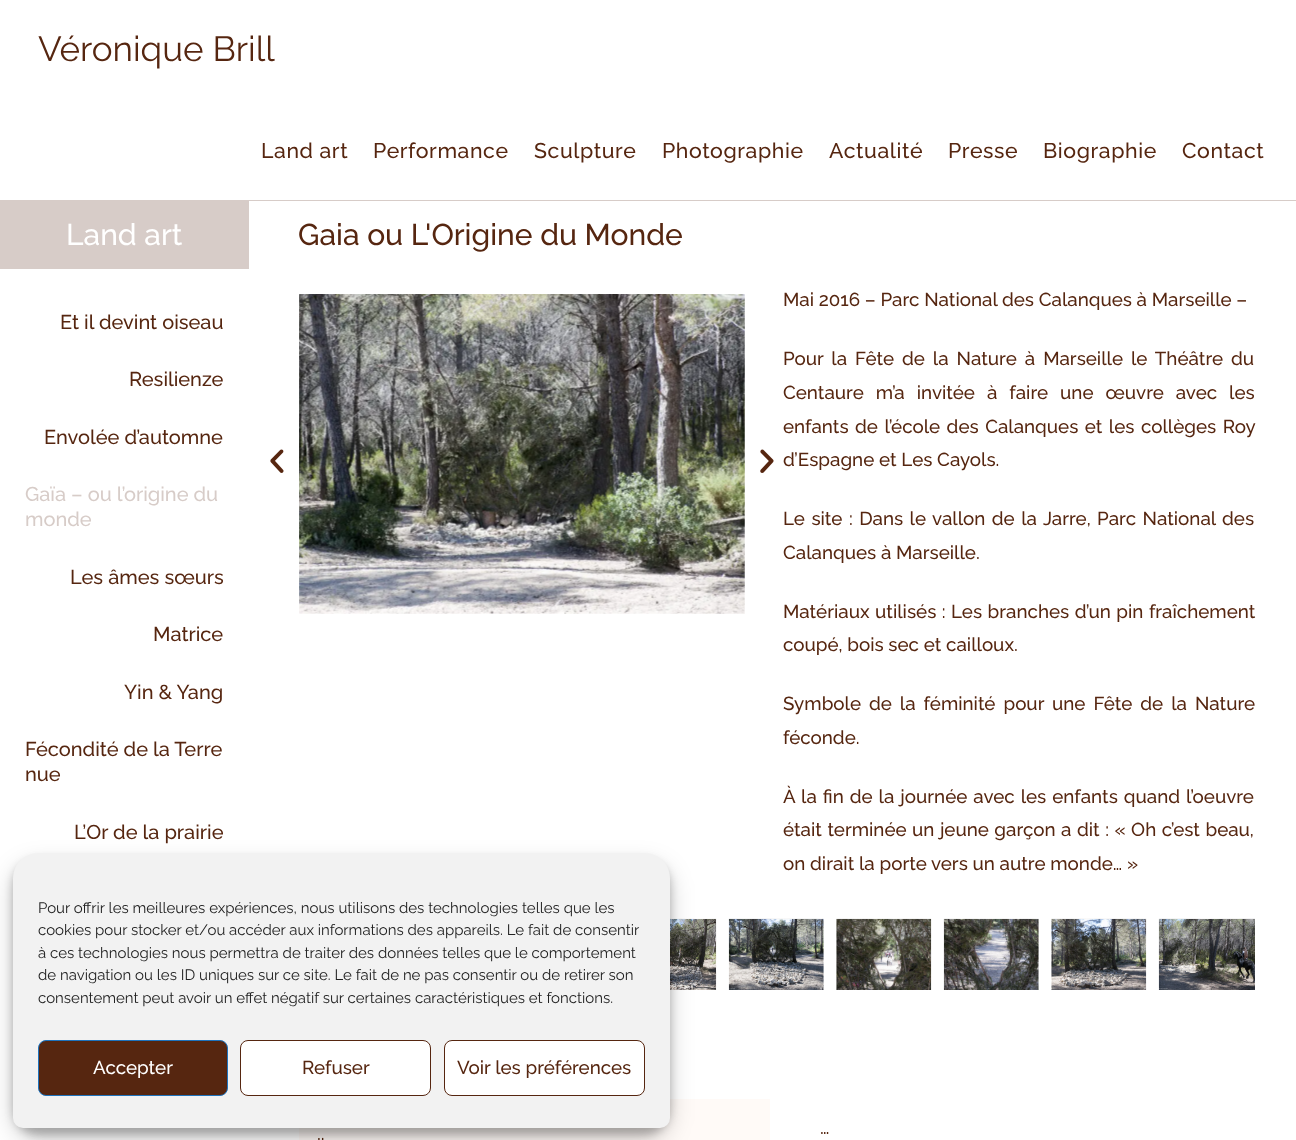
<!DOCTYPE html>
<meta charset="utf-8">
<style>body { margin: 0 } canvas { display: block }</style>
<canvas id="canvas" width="1296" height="1140"></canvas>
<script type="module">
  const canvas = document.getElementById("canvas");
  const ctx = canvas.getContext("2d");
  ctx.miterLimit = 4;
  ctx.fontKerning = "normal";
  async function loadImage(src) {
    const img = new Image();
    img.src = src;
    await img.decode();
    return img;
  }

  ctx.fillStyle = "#ffffff";
  ctx.fillRect(0, 0, 1296, 1140);
  ctx.fillStyle = "#d7ccc8";
  ctx.fillRect(0, 200, 1296, 1);
  ctx.font = "35px Raleway";
  ctx.fillStyle = "#562610";
  ctx.fillText("Véronique Brill", 38, 61);
  ctx.letterSpacing = "0.6px";
  ctx.font = "500 21.25px Raleway";
  ctx.fillText("Land art", 261, 158);
  ctx.fillText("Performance", 373, 158);
  ctx.fillText("Sculpture", 534, 158);
  ctx.fillText("Photographie", 662, 158);
  ctx.fillText("Actualité", 829, 158);
  ctx.fillText("Presse", 948, 158);
  ctx.fillText("Biographie", 1043, 158);
  ctx.fillText("Contact", 1182, 158);
  ctx.fillStyle = "#d7ccc8";
  ctx.fillRect(0, 201, 249, 68);
  ctx.letterSpacing = "0px";
  ctx.font = "500 30px Raleway";
  ctx.fillStyle = "#ffffff";
  ctx.fillText("Land art", 66, 245);
  ctx.font = "500 20px Raleway";
  ctx.fillStyle = "#562610";
  ctx.fillText("Et il devint oiseau", 60, 329);
  ctx.fillText("Resilienze", 129, 386);
  ctx.fillText("Envolée d’automne", 44, 444);
  ctx.fillStyle = "#d7ccc8";
  ctx.fillText("Gaïa – ou l’origine du", 25, 501);
  ctx.fillText("monde", 25, 526);
  ctx.fillStyle = "#562610";
  ctx.fillText("Les âmes sœurs", 70, 584);
  ctx.fillText("Matrice", 153, 641);
  ctx.fillText("Yin & Yang", 124, 699);
  ctx.fillText("Fécondité de la Terre", 25, 756);
  ctx.fillText("nue", 25, 781);
  ctx.fillText("L’Or de la prairie", 74, 839);
  ctx.font = "500 30px Raleway";
  ctx.fillText("Gaia ou L'Origine du Monde", 298, 245);
  ctx.drawImage(await loadImage("img1.png"), 270, 449, 14, 24);
  ctx.drawImage(await loadImage("img2.png"), 299, 294, 446, 320);
  ctx.drawImage(await loadImage("img3.png"), 760, 449, 14, 24);
  ctx.font = "500 18.75px Raleway";
  ctx.fillText("Mai 2016 – Parc National des Calanques à Marseille –", 783, 306);
  ctx.wordSpacing = "3.25px";
  ctx.fillText("Pour la Fête de la Nature à Marseille le Théâtre du", 783, 365);
  ctx.wordSpacing = "7.25px";
  ctx.fillText("Centaure m’a invitée à faire une œuvre avec les", 783, 399);
  ctx.wordSpacing = "1.75px";
  ctx.fillText("enfants de l’école des Calanques et les collèges Roy", 783, 433);
  ctx.wordSpacing = "0px";
  ctx.fillText("d’Espagne et Les Cayols.", 783, 466);
  ctx.wordSpacing = "1.75px";
  ctx.fillText("Le site : Dans le vallon de la Jarre, Parc National des", 783, 525);
  ctx.wordSpacing = "0px";
  ctx.fillText("Calanques à Marseille.", 783, 559);
  ctx.wordSpacing = "0.75px";
  ctx.fillText("Matériaux utilisés : Les branches d’un pin fraîchement", 783, 618);
  ctx.wordSpacing = "0px";
  ctx.fillText("coupé, bois sec et cailloux.", 783, 651);
  ctx.wordSpacing = "3.25px";
  ctx.fillText("Symbole de la féminité pour une Fête de la Nature", 783, 710);
  ctx.wordSpacing = "0px";
  ctx.fillText("féconde.", 783, 744);
  ctx.wordSpacing = "1.25px";
  ctx.fillText("À la fin de la journée avec les enfants quand l’oeuvre", 783, 803);
  ctx.wordSpacing = "0.75px";
  ctx.fillText("était terminée un jeune garçon a dit : « Oh c’est beau,", 783, 836);
  ctx.wordSpacing = "0px";
  ctx.fillText("on dirait la porte vers un autre monde… »", 783, 870);
  ctx.drawImage(await loadImage("img4.png"), 670, 918, 47, 72);
  ctx.drawImage(await loadImage("img5.png"), 728, 918, 96, 72);
  ctx.drawImage(await loadImage("img6.png"), 836, 918, 96, 72);
  ctx.drawImage(await loadImage("img7.png"), 943, 918, 96, 72);
  ctx.drawImage(await loadImage("img8.png"), 1051, 918, 96, 72);
  ctx.drawImage(await loadImage("img9.png"), 1158, 918, 97, 72);
  ctx.fillText("…", 820, 1134);
  ctx.fillStyle = "#fffaf7";
  ctx.fillRect(299, 1099, 471, 41);
  ctx.fillStyle = "#562610";
  ctx.fillText("..", 317, 1140);
  ctx.fillStyle = "rgba(0, 0, 0, 0.23)";
  ctx.filter = "blur(4px)";
  ctx.beginPath();
  ctx.roundRect(13, 860, 657, 275, 25);
  ctx.fill();
  ctx.filter = "none";
  ctx.fillStyle = "rgba(0, 0, 0, 0.19)";
  ctx.filter = "blur(12.5px)";
  ctx.beginPath();
  ctx.roundRect(13, 865, 657, 275, 25);
  ctx.fill();
  ctx.filter = "none";
  ctx.fillStyle = "#f2f2f2";
  ctx.beginPath();
  ctx.roundRect(13, 853, 657, 275, [25, 25, 10, 10]);
  ctx.fill();
  ctx.font = "15px Raleway";
  ctx.fillStyle = "#222222";
  ctx.fillText("Pour offrir les meilleures expériences, nous utilisons des technologies telles que les", 38, 913);
  ctx.fillText("cookies pour stocker et/ou accéder aux informations des appareils. Le fait de consentir", 38, 935);
  ctx.fillText("à ces technologies nous permettra de traiter des données telles que le comportement", 38, 958);
  ctx.fillText("de navigation ou les ID uniques sur ce site. Le fait de ne pas consentir ou de retirer son", 38, 980);
  ctx.fillText("consentement peut avoir un effet négatif sur certaines caractéristiques et fonctions.", 38, 1003);
  ctx.fillStyle = "#562610";
  ctx.beginPath();
  ctx.roundRect(38.5, 1040.5, 189, 55, 7.5);
  ctx.fill();
  ctx.strokeStyle = "#1e73be";
  ctx.stroke();
  ctx.font = "500 18.75px Raleway";
  ctx.fillStyle = "#ffffff";
  ctx.fillText("Accepter", 93, 1074);
  ctx.beginPath();
  ctx.roundRect(240.5, 1040.5, 190, 55, 7.5);
  ctx.fill();
  ctx.strokeStyle = "#562610";
  ctx.stroke();
  ctx.fillStyle = "#562610";
  ctx.fillText("Refuser", 302, 1074);
  ctx.fillStyle = "#ffffff";
  ctx.beginPath();
  ctx.roundRect(444.5, 1040.5, 200, 55, 7.5);
  ctx.fill();
  ctx.stroke();
  ctx.fillStyle = "#562610";
  ctx.fillText("Voir les préférences", 457, 1074);
</script>
